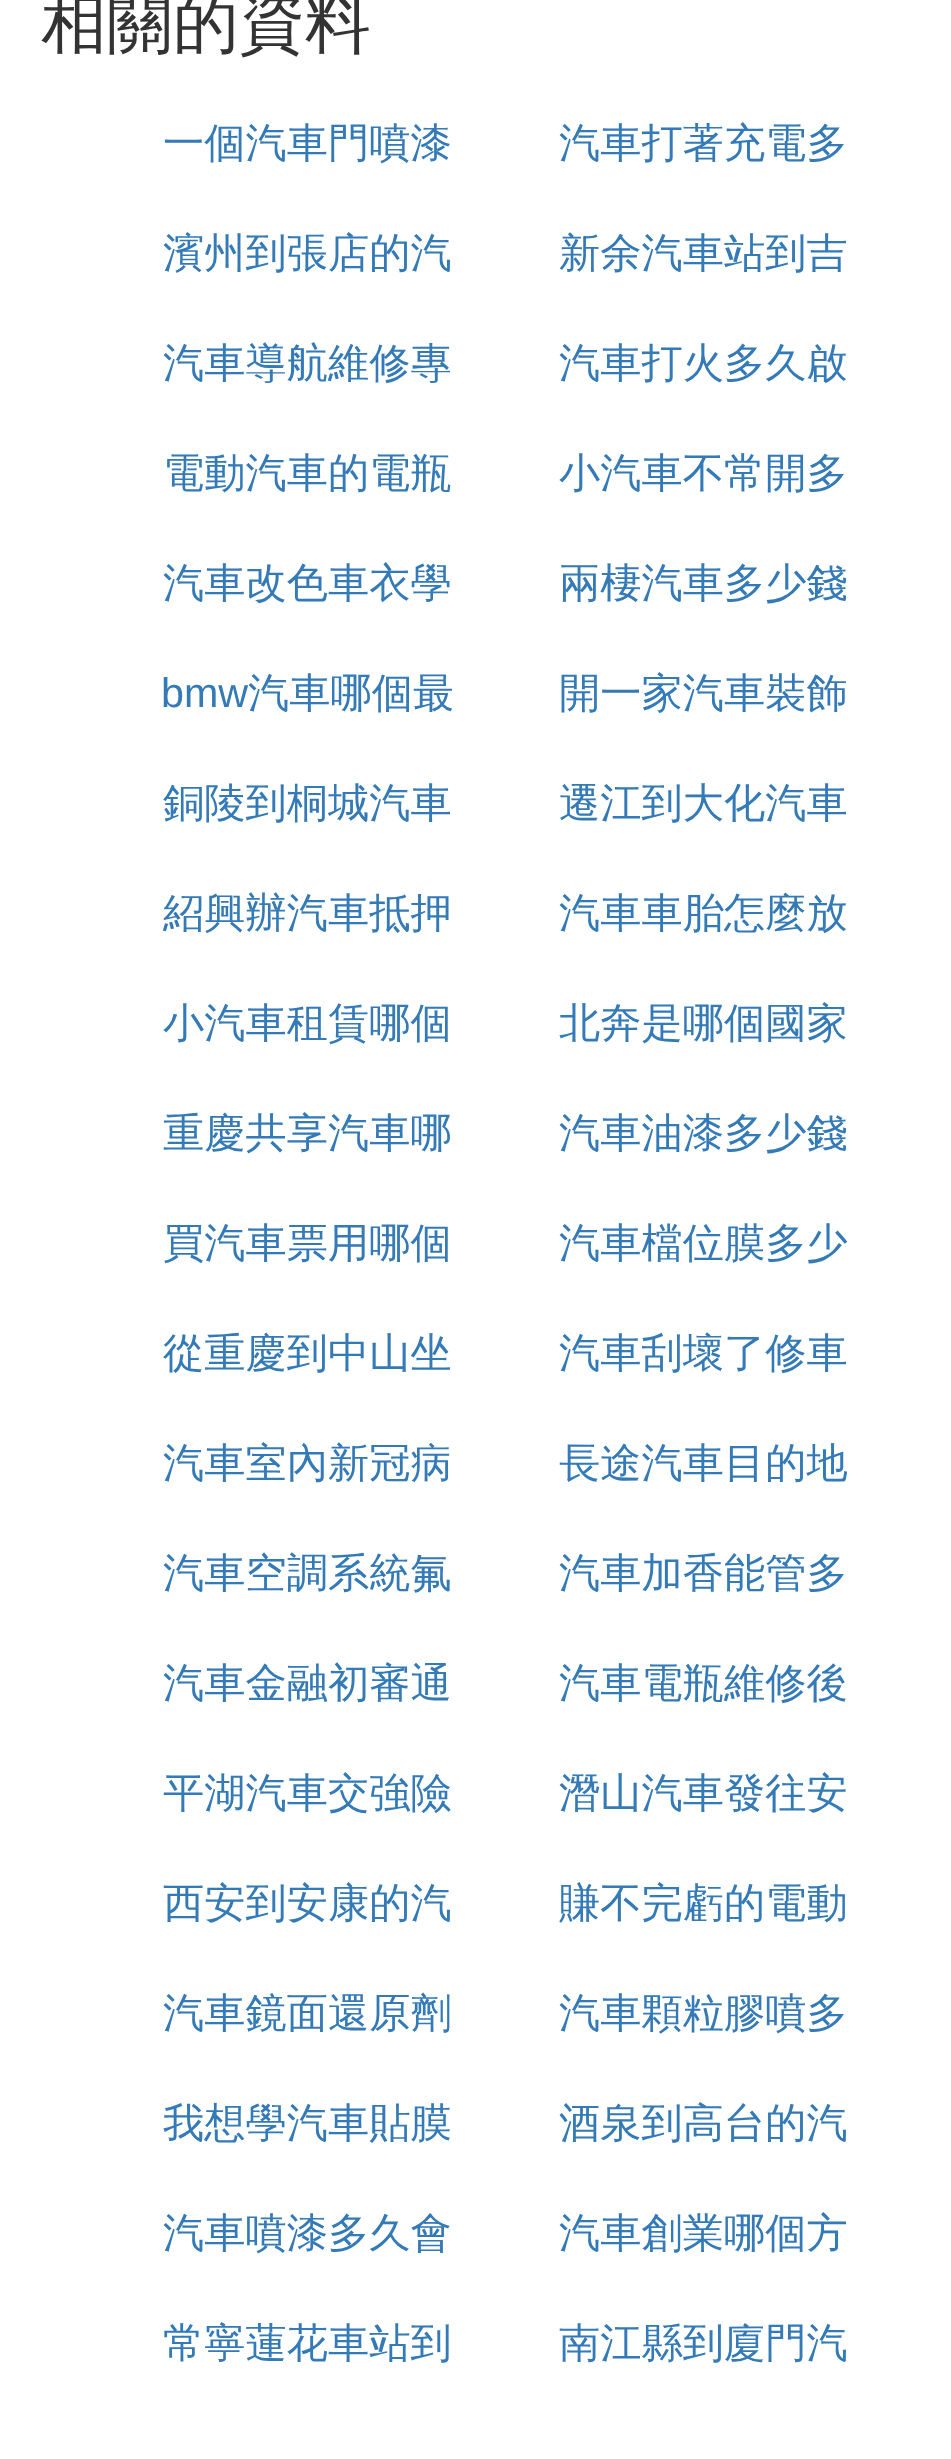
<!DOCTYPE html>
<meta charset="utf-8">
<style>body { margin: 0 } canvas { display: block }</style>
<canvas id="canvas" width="951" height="2459"></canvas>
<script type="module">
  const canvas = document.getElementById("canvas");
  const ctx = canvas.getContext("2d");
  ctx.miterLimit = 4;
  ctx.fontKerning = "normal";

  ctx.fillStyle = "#ffffff";
  ctx.fillRect(0, 0, 951, 2459);
  ctx.font = "500 66px WenQuanYi Zen Hei";
  ctx.fillStyle = "#333333";
  ctx.fillText("相關的資料", 41, 46);
  ctx.font = "500 41.25px WenQuanYi Zen Hei";
  ctx.fillStyle = "#337ab7";
  ctx.fillText("一個汽車門噴漆", 163, 157);
  ctx.fillText("汽車打著充電多", 559, 157);
  ctx.fillText("濱州到張店的汽", 163, 267);
  ctx.fillText("新余汽車站到吉", 559, 267);
  ctx.fillText("汽車導航維修專", 163, 377);
  ctx.fillText("汽車打火多久啟", 559, 377);
  ctx.fillText("電動汽車的電瓶", 163, 487);
  ctx.fillText("小汽車不常開多", 559, 487);
  ctx.fillText("汽車改色車衣學", 163, 597);
  ctx.fillText("兩棲汽車多少錢", 559, 597);
  ctx.font = "41.25px Liberation Sans";
  ctx.fillText("bmw", 161, 707);
  ctx.font = "500 41.25px WenQuanYi Zen Hei";
  ctx.fillText("汽車哪個最", 248, 707);
  ctx.fillText("開一家汽車裝飾", 559, 707);
  ctx.fillText("銅陵到桐城汽車", 163, 817);
  ctx.fillText("遷江到大化汽車", 559, 817);
  ctx.fillText("紹興辦汽車抵押", 163, 927);
  ctx.fillText("汽車車胎怎麼放", 559, 927);
  ctx.fillText("小汽車租賃哪個", 163, 1037);
  ctx.fillText("北奔是哪個國家", 559, 1037);
  ctx.fillText("重慶共享汽車哪", 163, 1147);
  ctx.fillText("汽車油漆多少錢", 559, 1147);
  ctx.fillText("買汽車票用哪個", 163, 1257);
  ctx.fillText("汽車檔位膜多少", 559, 1257);
  ctx.fillText("從重慶到中山坐", 163, 1367);
  ctx.fillText("汽車刮壞了修車", 559, 1367);
  ctx.fillText("汽車室內新冠病", 163, 1477);
  ctx.fillText("長途汽車目的地", 559, 1477);
  ctx.fillText("汽車空調系統氟", 163, 1587);
  ctx.fillText("汽車加香能管多", 559, 1587);
  ctx.fillText("汽車金融初審通", 163, 1697);
  ctx.fillText("汽車電瓶維修後", 559, 1697);
  ctx.fillText("平湖汽車交強險", 163, 1807);
  ctx.fillText("潛山汽車發往安", 559, 1807);
  ctx.fillText("西安到安康的汽", 163, 1917);
  ctx.fillText("賺不完虧的電動", 559, 1917);
  ctx.fillText("汽車鏡面還原劑", 163, 2027);
  ctx.fillText("汽車顆粒膠噴多", 559, 2027);
  ctx.fillText("我想學汽車貼膜", 163, 2137);
  ctx.fillText("酒泉到高台的汽", 559, 2137);
  ctx.fillText("汽車噴漆多久會", 163, 2247);
  ctx.fillText("汽車創業哪個方", 559, 2247);
  ctx.fillText("常寧蓮花車站到", 163, 2357);
  ctx.fillText("南江縣到廈門汽", 559, 2357);
</script>
